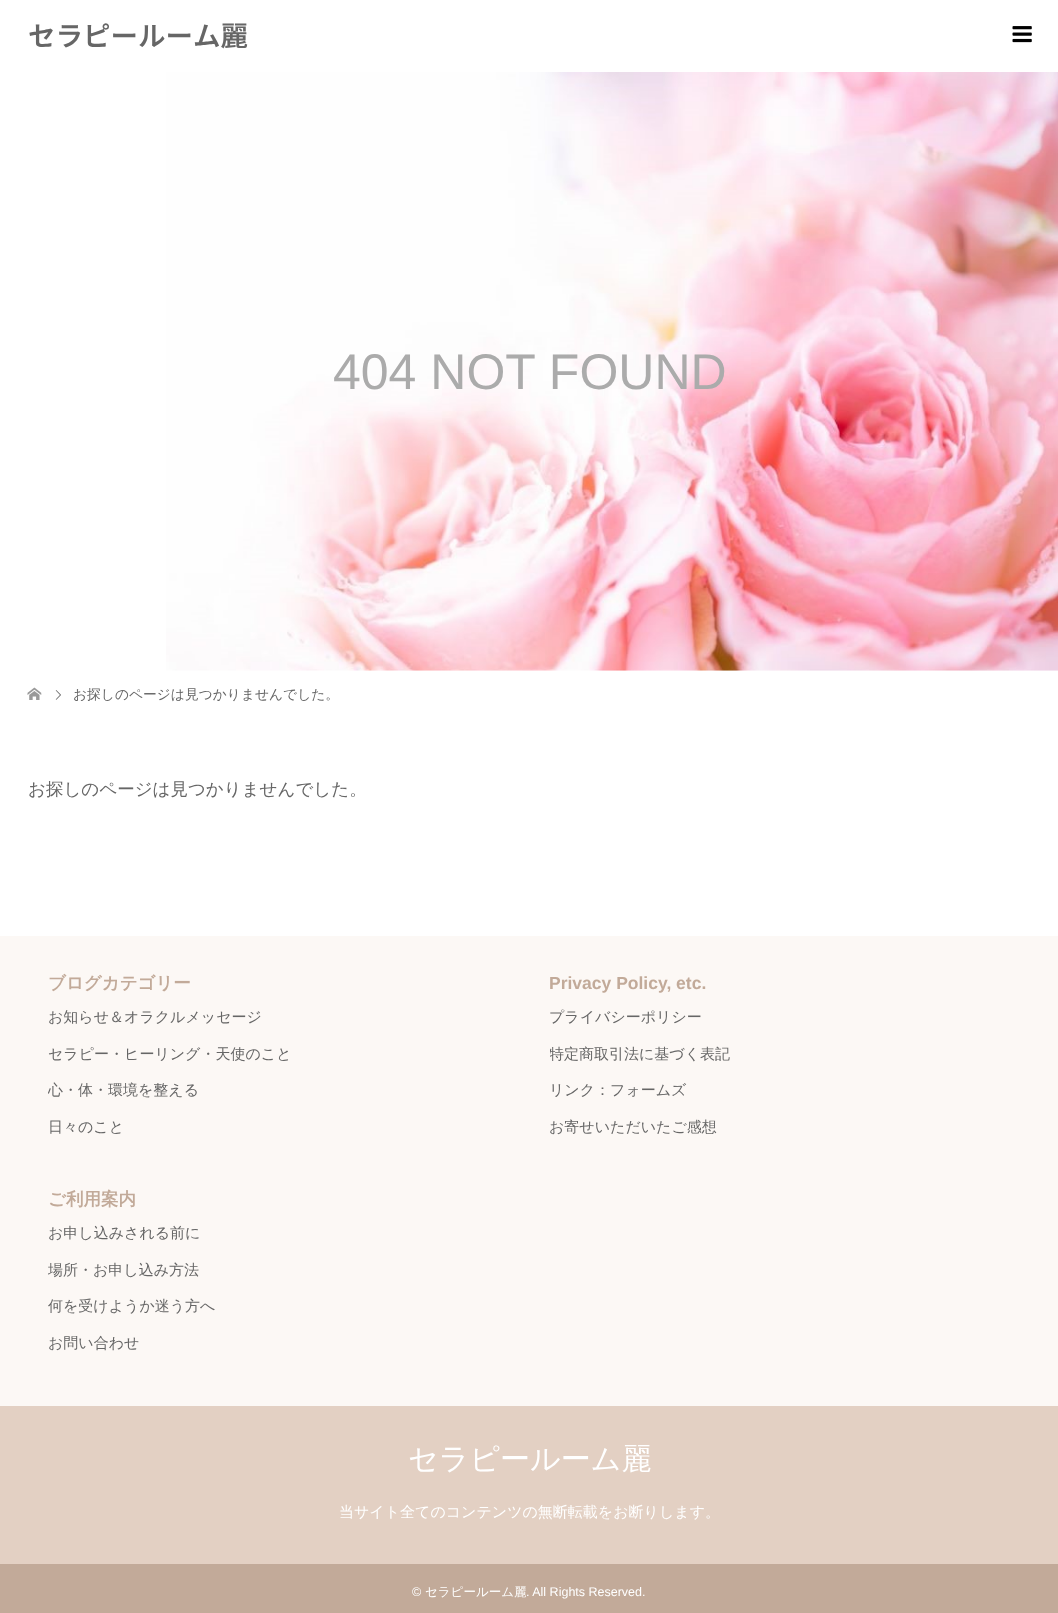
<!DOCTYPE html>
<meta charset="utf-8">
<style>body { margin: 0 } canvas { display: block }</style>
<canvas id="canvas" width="1058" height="1613"></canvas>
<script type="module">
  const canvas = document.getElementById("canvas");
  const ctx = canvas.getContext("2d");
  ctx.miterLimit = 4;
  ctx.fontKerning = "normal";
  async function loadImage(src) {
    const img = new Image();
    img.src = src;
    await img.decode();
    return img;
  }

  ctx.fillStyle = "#ffffff";
  ctx.fillRect(0, 0, 1058, 1613);
  ctx.font = "600 27.5px Noto Sans JP";
  ctx.fillStyle = "#666666";
  ctx.fillText("セラピールーム麗", 28, 46);
  ctx.drawImage(await loadImage("img1.png"), 1012, 26, 20, 17);
  ctx.drawImage(await loadImage("img2.png"), 166, 72, 892, 599);
  ctx.font = "50px Liberation Sans";
  ctx.fillStyle = "#ababab";
  ctx.fillText("404 NOT FOUND", 333, 389);
  ctx.drawImage(await loadImage("img3.png"), 27, 687, 15, 13);
  ctx.drawImage(await loadImage("img4.png"), 55, 690, 6, 10);
  ctx.font = "500 13.75px WenQuanYi Zen Hei";
  ctx.fillStyle = "#666666";
  ctx.fillText("お探しのページは見つかりませんでした。", 73, 699);
  ctx.font = "500 17.5px WenQuanYi Zen Hei";
  ctx.fillText("お探しのページは見つかりませんでした。", 28, 795);
  ctx.fillStyle = "#fcf8f5";
  ctx.fillRect(0, 936, 1058, 470);
  ctx.font = "bold 17.5px WenQuanYi Zen Hei";
  ctx.fillStyle = "#c2aa99";
  ctx.fillText("ブログカテゴリー", 48, 989);
  ctx.font = "500 15px WenQuanYi Zen Hei";
  ctx.fillStyle = "#666666";
  ctx.fillText("お知らせ＆オラクルメッセージ", 48, 1022);
  ctx.fillText("セラピー・ヒーリング・天使のこと", 48, 1059);
  ctx.save();
  ctx.beginPath();
  ctx.rect(48, 974, 461, 179);
  ctx.clip();
  ctx.fillText("心・体・環境を整える", 48, 1095);
  ctx.restore();
  ctx.fillText("日々のこと", 48, 1132);
  ctx.font = "bold 17.5px Liberation Sans";
  ctx.fillStyle = "#c2aa99";
  ctx.fillText("Privacy Policy, etc.", 549, 989);
  ctx.font = "500 15px WenQuanYi Zen Hei";
  ctx.fillStyle = "#666666";
  ctx.fillText("プライバシーポリシー", 549, 1022);
  ctx.save();
  ctx.beginPath();
  ctx.rect(550, 974, 461, 179);
  ctx.clip();
  ctx.fillText("特定商取引法に基づく表記", 549, 1059);
  ctx.restore();
  ctx.fillText("リンク：フォームズ", 549, 1095);
  ctx.fillText("お寄せいただいたご感想", 549, 1132);
  ctx.font = "bold 17.5px WenQuanYi Zen Hei";
  ctx.fillStyle = "#c2aa99";
  ctx.fillText("ご利用案内", 48, 1205);
  ctx.font = "500 15px WenQuanYi Zen Hei";
  ctx.fillStyle = "#666666";
  ctx.fillText("お申し込みされる前に", 48, 1238);
  ctx.save();
  ctx.beginPath();
  ctx.rect(48, 1190, 231, 178);
  ctx.clip();
  ctx.fillText("場所・お申し込み方法", 48, 1275);
  ctx.restore();
  ctx.fillText("何を受けようか迷う方へ", 48, 1311);
  ctx.fillText("お問い合わせ", 48, 1348);
  ctx.fillStyle = "#e3d0c3";
  ctx.fillRect(0, 1406, 1058, 158);
  ctx.font = "500 30px WenQuanYi Zen Hei";
  ctx.fillStyle = "#ffffff";
  ctx.fillText("セラピールーム麗", 408, 1469);
  ctx.font = "500 15px WenQuanYi Zen Hei";
  ctx.fillText("当サイト全てのコンテンツの無断転載をお断りします。", 339, 1517);
  ctx.fillStyle = "#c2aa99";
  ctx.fillRect(0, 1564, 1058, 49);
  ctx.font = "12.5px Liberation Sans";
  ctx.fillStyle = "#ffffff";
  ctx.fillText("©", 412, 1596);
  ctx.font = "500 12.5px WenQuanYi Zen Hei";
  ctx.fillText("セラピールーム麗", 425, 1596);
  ctx.font = "12.5px Liberation Sans";
  ctx.fillText(". All Rights Reserved.", 526, 1596);
</script>
